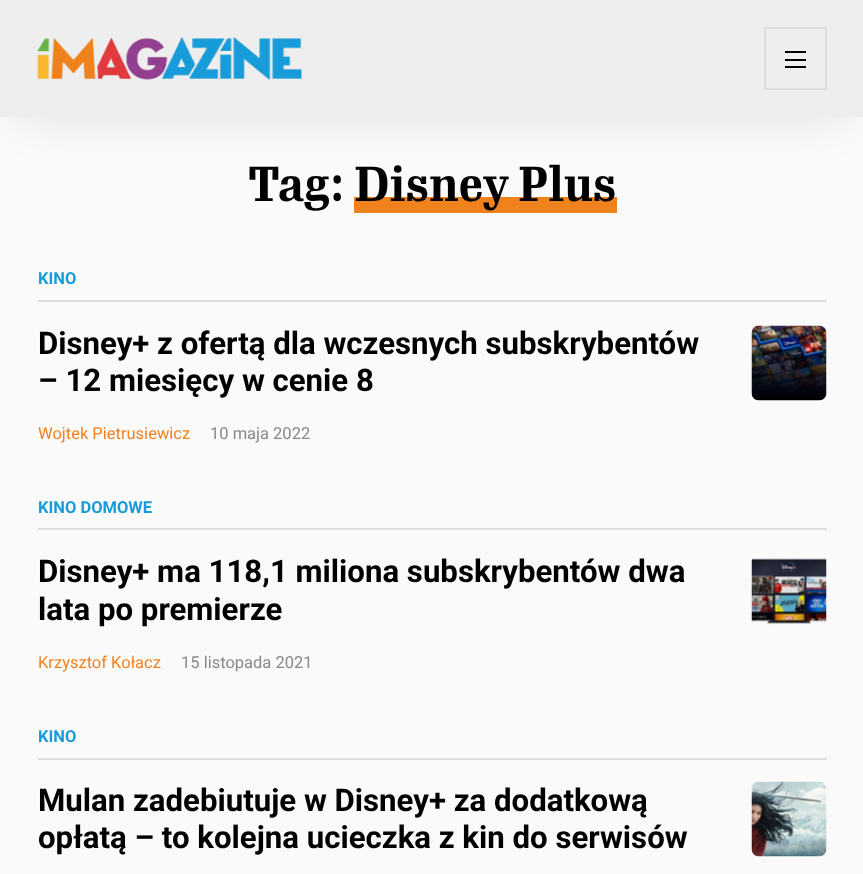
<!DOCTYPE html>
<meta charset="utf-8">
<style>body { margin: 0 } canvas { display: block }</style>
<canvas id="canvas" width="863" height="874"></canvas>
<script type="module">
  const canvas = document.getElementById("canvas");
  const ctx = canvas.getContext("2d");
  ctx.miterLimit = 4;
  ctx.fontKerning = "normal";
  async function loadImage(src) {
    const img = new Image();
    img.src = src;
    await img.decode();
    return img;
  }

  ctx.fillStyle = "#fafafa";
  ctx.fillRect(0, 0, 863, 874);
  ctx.fillStyle = "rgba(0, 0, 0, 0.1)";
  ctx.filter = "blur(22.5px)";
  ctx.beginPath();
  ctx.rect(15, 30, 834, 87);
  ctx.fill();
  ctx.filter = "none";
  ctx.fillStyle = "#eeeeee";
  ctx.fillRect(0, 0, 863, 117);
  ctx.drawImage(await loadImage("img1.png"), 37, 37, 265, 43);
  ctx.strokeStyle = "#dddddd";
  ctx.lineWidth = 2;
  ctx.strokeRect(765, 28, 61, 61);
  ctx.fillStyle = "#000000";
  ctx.fillRect(785, 66, 21, 2);
  ctx.fillRect(785, 51, 21, 2);
  ctx.fillRect(785, 59, 21, 2);
  ctx.font = "bold 48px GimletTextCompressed";
  ctx.fillText("Tag:", 248, 201);
  ctx.fillStyle = "#f0821e";
  ctx.fillRect(354, 197, 263, 16);
  ctx.fillStyle = "#000000";
  ctx.fillText("Disney Plus", 354, 201);
  ctx.fillStyle = "#dddddd";
  ctx.fillRect(38, 300, 789, 2);
  ctx.font = "bold 16.5px Roboto";
  ctx.fillStyle = "#179cd9";
  ctx.fillText("KINO", 38, 284);
  ctx.font = "bold 31.2px Roboto";
  ctx.fillStyle = "#000000";
  ctx.fillText("Disney+ z ofertą dla wczesnych subskrybentów", 38, 354);
  ctx.fillText("– 12 miesięcy w cenie 8", 38, 391);
  ctx.font = "16.5px Roboto";
  ctx.fillStyle = "#f0821e";
  ctx.fillText("Wojtek Pietrusiewicz", 38, 439);
  ctx.fillStyle = "#888888";
  ctx.fillText("10 maja 2022", 210, 439);
  ctx.drawImage(await loadImage("img2.png"), 751, 325, 76, 76);
  ctx.fillStyle = "#dddddd";
  ctx.fillRect(38, 528, 789, 2);
  ctx.font = "bold 16.5px Roboto";
  ctx.fillStyle = "#179cd9";
  ctx.fillText("KINO DOMOWE", 38, 513);
  ctx.font = "bold 31.2px Roboto";
  ctx.fillStyle = "#000000";
  ctx.fillText("Disney+ ma 118,1 miliona subskrybentów dwa", 38, 582);
  ctx.fillText("lata po premierze", 38, 620);
  ctx.font = "16.5px Roboto";
  ctx.fillStyle = "#f0821e";
  ctx.fillText("Krzysztof Kołacz", 38, 668);
  ctx.fillStyle = "#888888";
  ctx.fillText("15 listopada 2021", 181, 668);
  ctx.drawImage(await loadImage("img3.png"), 751, 558, 76, 68);
  ctx.fillStyle = "#dddddd";
  ctx.fillRect(38, 758, 789, 2);
  ctx.font = "bold 16.5px Roboto";
  ctx.fillStyle = "#179cd9";
  ctx.fillText("KINO", 38, 742);
  ctx.font = "bold 31.2px Roboto";
  ctx.fillStyle = "#000000";
  ctx.fillText("Mulan zadebiutuje w Disney+ za dodatkową", 38, 811);
  ctx.fillText("opłatą – to kolejna ucieczka z kin do serwisów", 38, 848);
  ctx.drawImage(await loadImage("img4.png"), 751, 781, 76, 76);
</script>
